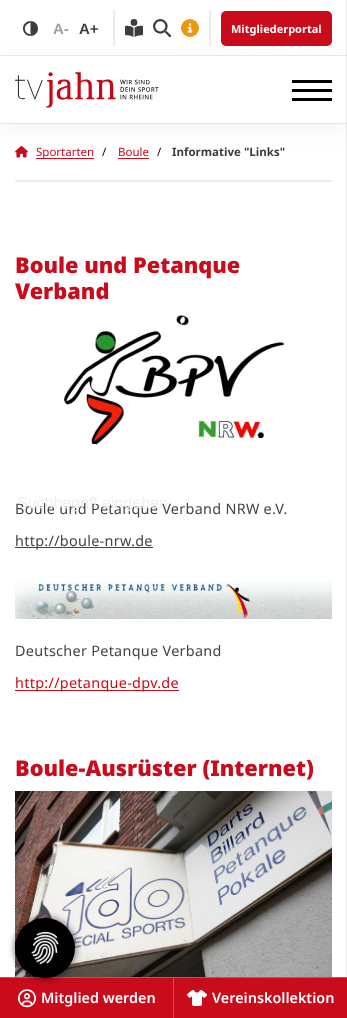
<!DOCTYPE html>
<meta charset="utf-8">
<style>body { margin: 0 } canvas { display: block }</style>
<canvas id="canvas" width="347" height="1018"></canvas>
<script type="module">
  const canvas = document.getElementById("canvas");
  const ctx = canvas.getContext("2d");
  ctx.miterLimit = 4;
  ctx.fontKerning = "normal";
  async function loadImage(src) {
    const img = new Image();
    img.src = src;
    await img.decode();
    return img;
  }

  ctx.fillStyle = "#ffffff";
  ctx.fillRect(0, 0, 347, 1018);
  ctx.drawImage(await loadImage("img1.png"), 23, 21, 15, 15);
  ctx.font = "bold 15px Liberation Sans";
  ctx.fillStyle = "#9e9e9d";
  ctx.fillText("A-", 53, 34);
  ctx.fillStyle = "#3c3c3b";
  ctx.fillText("A+", 79, 34);
  ctx.fillStyle = "#ededed";
  ctx.fillRect(113, 10, 2, 36);
  ctx.drawImage(await loadImage("img2.png"), 125, 19, 18, 18);
  ctx.drawImage(await loadImage("img3.png"), 153, 19, 18, 18);
  ctx.drawImage(await loadImage("img4.png"), 181, 19, 18, 18);
  ctx.fillRect(209, 10, 2, 36);
  ctx.fillStyle = "#c90b1c";
  ctx.beginPath();
  ctx.roundRect(221, 11, 111, 35, 5);
  ctx.fill();
  ctx.font = "bold 11px Noto Sans";
  ctx.fillStyle = "#ffffff";
  ctx.fillText("Mitgliederportal", 231, 33);
  ctx.strokeStyle = "#ebebeb";
  ctx.strokeRect(-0.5, 55.5, 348, 68);
  ctx.drawImage(await loadImage("img6.png"), 15, 146, 13, 12);
  ctx.fillStyle = "#c90b1c";
  ctx.fillRect(36, 158, 58, 1);
  ctx.fillRect(118, 158, 31, 1);
  ctx.fillStyle = "rgba(0, 0, 0, 0.05)";
  ctx.filter = "blur(12px)";
  ctx.beginPath();
  ctx.rect(0, 62, 347, 67);
  ctx.fill();
  ctx.filter = "none";
  ctx.fillStyle = "#ffffff";
  ctx.fillRect(0, 56, 347, 67);
  ctx.drawImage(await loadImage("img5.png"), 15, 72, 144, 36);
  ctx.fillStyle = "#000000";
  ctx.fillRect(292, 89, 40, 3);
  ctx.fillRect(292, 80, 40, 3);
  ctx.fillRect(292, 98, 40, 3);
  ctx.strokeStyle = "rgba(0, 0, 0, 0.08)";
  ctx.strokeRect(346.5, -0.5, 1, 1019);
  ctx.fillStyle = "#ededed";
  ctx.fillRect(15, 180, 317, 2);
  ctx.font = "11.5px Noto Sans";
  ctx.fillStyle = "#c90b1c";
  ctx.fillText("Sportarten", 36, 156);
  ctx.fillStyle = "#000000";
  ctx.fillText("/", 102, 156);
  ctx.fillStyle = "#c90b1c";
  ctx.fillText("Boule", 118, 156);
  ctx.fillStyle = "#000000";
  ctx.fillText("/", 157, 156);
  ctx.font = "bold 11.5px Noto Sans";
  ctx.fillStyle = "#3c3c3b";
  ctx.fillText("Informative \"Links\"", 172, 156);
  ctx.font = "900 21.75px Noto Sans";
  ctx.fillStyle = "#c90b1c";
  ctx.fillText("Boule und Petanque", 15, 273);
  ctx.fillText("Verband", 15, 299);
  ctx.drawImage(await loadImage("img7.png"), 64, 315, 220, 130);
  ctx.letterSpacing = "0.3px";
  ctx.font = "14.4px Noto Sans";
  ctx.fillStyle = "#40454a";
  ctx.fillText("Boule und Petanque Verband NRW e.V.", 15, 514);
  ctx.fillRect(15, 547, 138, 1);
  ctx.fillText("http://boule-nrw.de", 15, 546);
  ctx.drawImage(await loadImage("img8.png"), 15, 581, 317, 38);
  ctx.fillText("Deutscher Petanque Verband", 15, 656);
  ctx.fillStyle = "#c90b1c";
  ctx.fillRect(15, 690, 164, 1);
  ctx.fillText("http://petanque-dpv.de", 15, 688);
  ctx.letterSpacing = "0px";
  ctx.font = "900 21.75px Noto Sans";
  ctx.fillText("Boule-Ausrüster (Internet)", 15, 776);
  ctx.drawImage(await loadImage("img9.png"), 15, 791, 317, 186);
  ctx.font = "16px Liberation Sans";
  ctx.fillStyle = "#eeefef";
  ctx.fillText("Suchbegriff eingeben", 17, 508);
  ctx.fillStyle = "#c90b1c";
  ctx.fillRect(0, 978, 173, 40);
  ctx.fillStyle = "#d74855";
  ctx.fillRect(0, 977, 173, 1);
  ctx.fillStyle = "rgba(0, 0, 0, 0.5)";
  ctx.filter = "blur(3px)";
  ctx.beginPath();
  ctx.roundRect(14, 917, 62, 62, 31);
  ctx.fill();
  ctx.filter = "none";
  ctx.fillStyle = "#000000";
  ctx.beginPath();
  ctx.arc(45, 948, 30, 0, Math.PI * 2);
  ctx.fill();
  ctx.drawImage(await loadImage("img10.png"), 31, 932, 28, 32);
  ctx.drawImage(await loadImage("img11.png"), 18, 989, 18, 19);
  ctx.font = "600 14.4px Noto Sans";
  ctx.fillStyle = "#ffffff";
  ctx.fillText("Mitglied werden", 41, 1003);
  ctx.fillStyle = "#c90b1c";
  ctx.fillRect(173, 977, 174, 41);
  ctx.fillStyle = "#d74855";
  ctx.beginPath();
  ctx.moveTo(173, 977);
  ctx.lineTo(347, 977);
  ctx.lineTo(347, 978);
  ctx.lineTo(174, 978);
  ctx.closePath();
  ctx.fill();
  ctx.fillStyle = "rgba(255, 255, 255, 0.25)";
  ctx.beginPath();
  ctx.moveTo(173, 1018);
  ctx.lineTo(173, 977);
  ctx.lineTo(174, 978);
  ctx.lineTo(174, 1018);
  ctx.closePath();
  ctx.fill();
  ctx.drawImage(await loadImage("img12.png"), 187, 990, 20, 16);
  ctx.fillStyle = "#ffffff";
  ctx.fillText("Vereinskollektion", 212, 1003);
</script>
